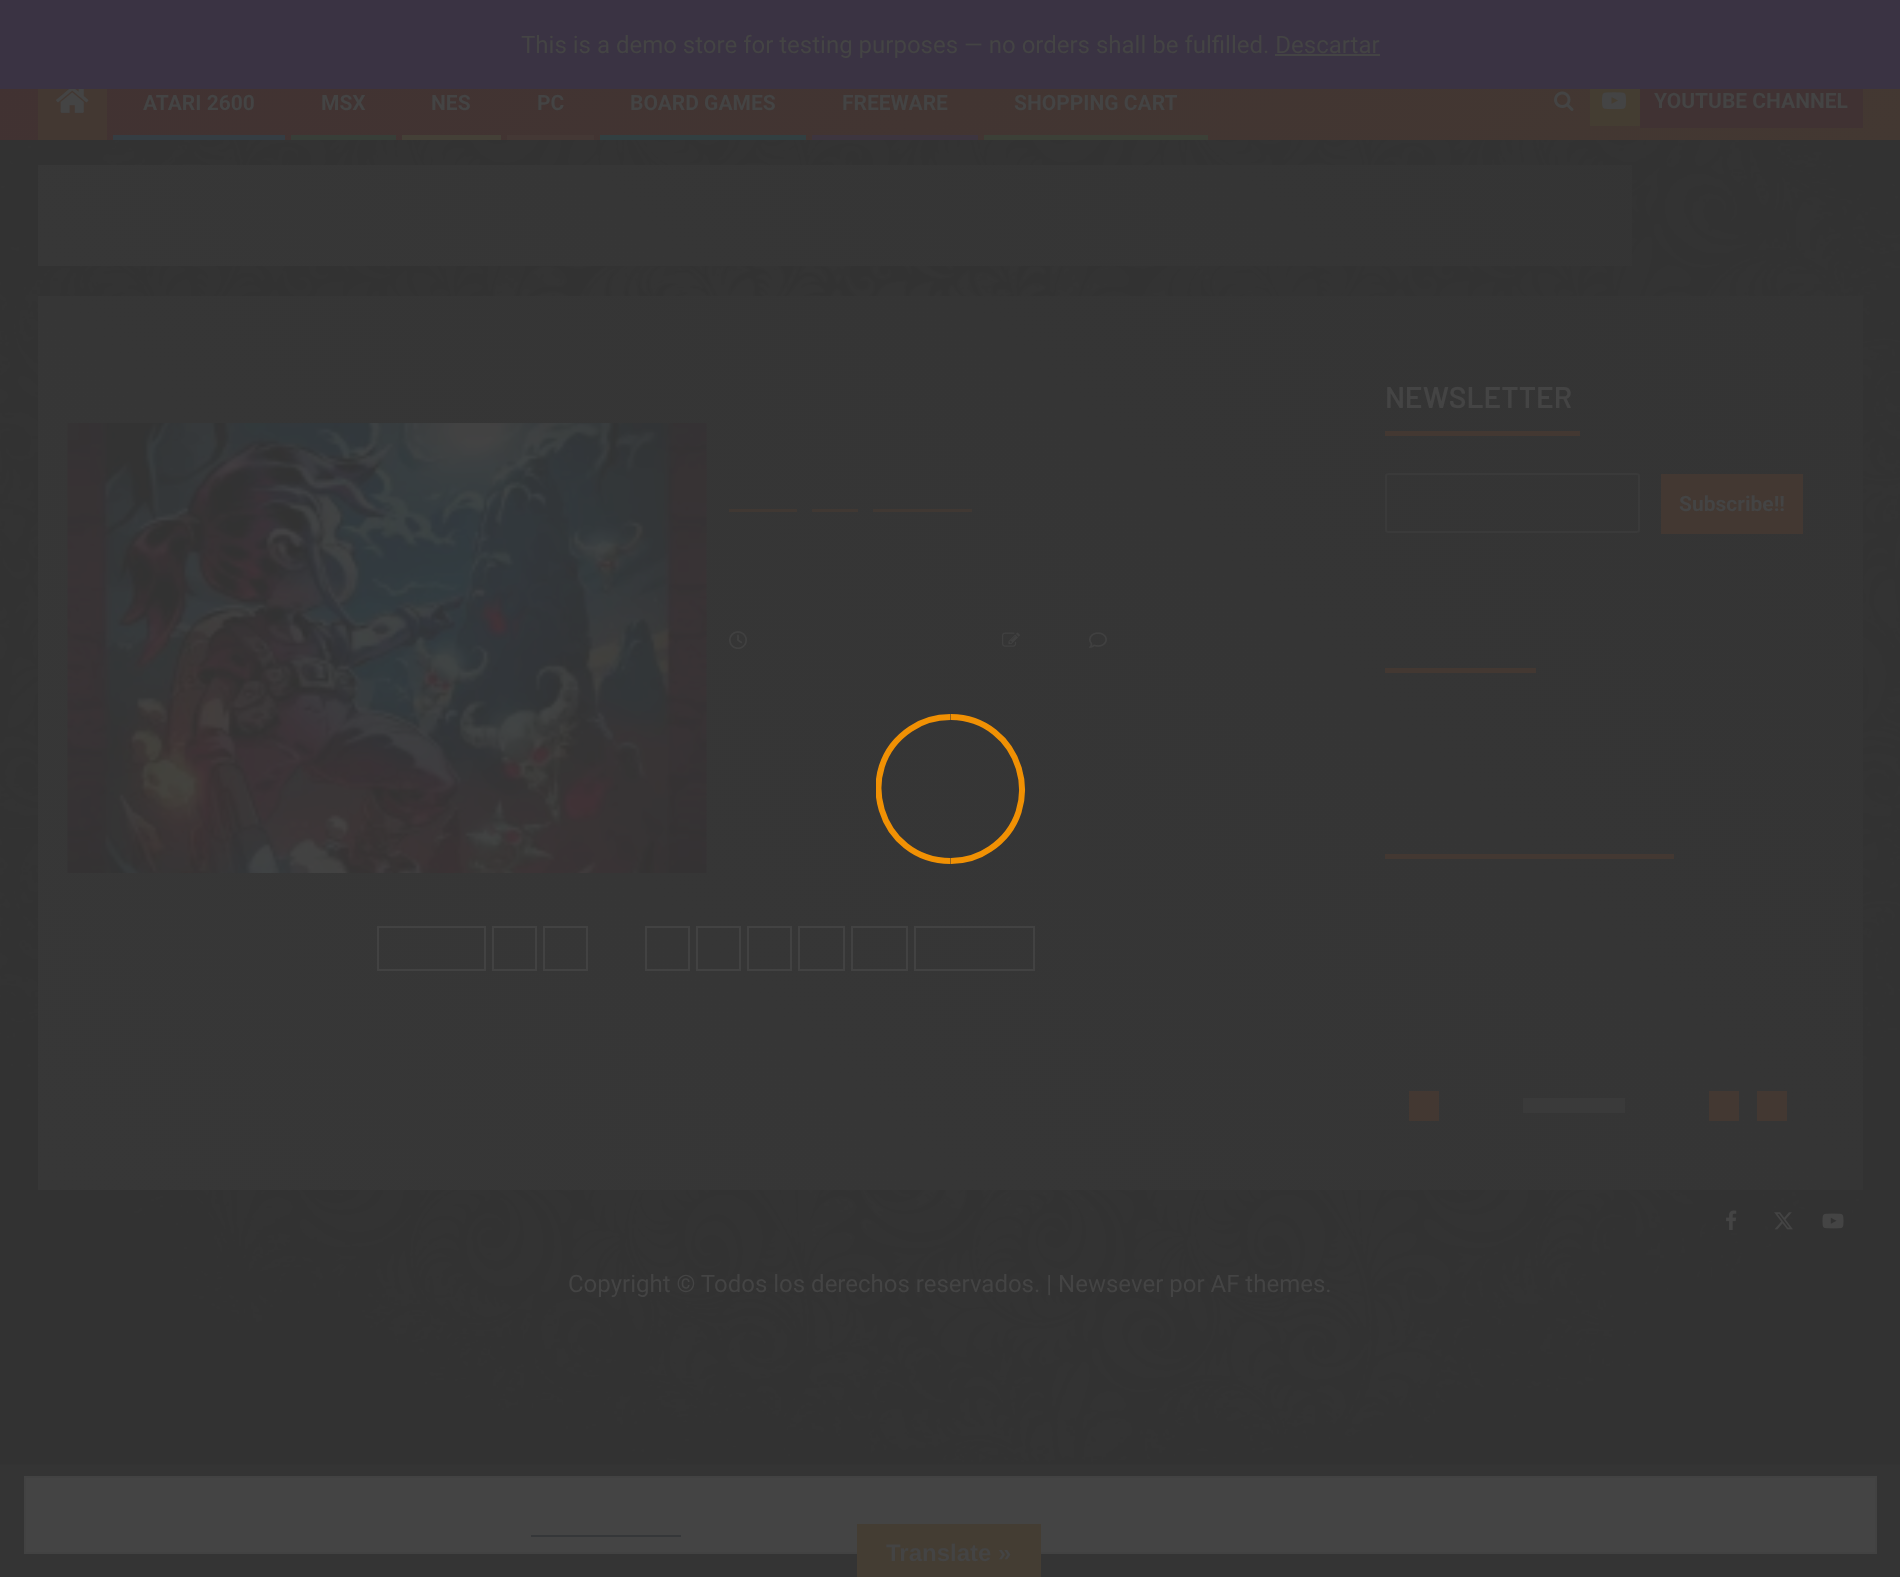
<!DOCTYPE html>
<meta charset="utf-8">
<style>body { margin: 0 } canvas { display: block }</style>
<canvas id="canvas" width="1900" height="1577"></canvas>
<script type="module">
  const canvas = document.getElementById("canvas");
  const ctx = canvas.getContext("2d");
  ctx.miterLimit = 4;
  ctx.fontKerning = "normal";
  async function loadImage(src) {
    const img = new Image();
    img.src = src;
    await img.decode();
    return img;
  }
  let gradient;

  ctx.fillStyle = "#343434";
  ctx.fillRect(0, 0, 1900, 1577);
  ctx.drawImage(await loadImage("img1.png"), 0, 140, 1900, 1325);
  ctx.fillStyle = "#3a3343";
  ctx.fillRect(0, 0, 1900, 89);
  ctx.font = "24px Roboto";
  ctx.fillStyle = "#444444";
  ctx.fillText("This is a demo store for testing purposes — no orders shall be fulfilled. Descartar", 521, 53);
  ctx.fillRect(1275, 54, 105, 2);
  gradient = ctx.createLinearGradient(539, -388, 1361, 592);
  gradient.addColorStop(0, "#413232");
  gradient.addColorStop(1, "#433832");
  ctx.fillStyle = gradient;
  ctx.fillRect(0, 89, 1900, 51);
  ctx.fillStyle = "#433832";
  ctx.fillRect(38, 89, 69, 51);
  ctx.drawImage(await loadImage("img2.png"), 56, 89, 33, 24);
  ctx.font = "bold 21px Roboto";
  ctx.fillStyle = "#444444";
  ctx.fillText("ATARI 2600", 143, 110);
  ctx.fillStyle = "#353d43";
  ctx.fillRect(113, 135, 172, 5);
  ctx.fillStyle = "#444444";
  ctx.fillText("MSX", 321, 110);
  ctx.fillStyle = "#383e38";
  ctx.fillRect(291, 135, 105, 5);
  ctx.fillStyle = "#444444";
  ctx.fillText("NES", 431, 110);
  ctx.fillStyle = "#444037";
  ctx.fillRect(402, 135, 99, 5);
  ctx.fillStyle = "#444444";
  ctx.fillText("PC", 537, 110);
  ctx.fillStyle = "#443835";
  ctx.fillRect(507, 135, 87, 5);
  ctx.fillStyle = "#444444";
  ctx.fillText("BOARD GAMES", 630, 110);
  ctx.fillStyle = "#323f41";
  ctx.fillRect(600, 135, 206, 5);
  ctx.fillStyle = "#444444";
  ctx.fillText("FREEWARE", 842, 110);
  ctx.fillStyle = "#3d353f";
  ctx.fillRect(812, 135, 166, 5);
  ctx.fillStyle = "#444444";
  ctx.fillText("SHOPPING CART", 1014, 110);
  ctx.fillStyle = "#3c4037";
  ctx.fillRect(984, 135, 224, 5);
  ctx.drawImage(await loadImage("img3.png"), 1554, 91, 20, 20);
  ctx.fillStyle = "#443d32";
  ctx.fillRect(1590, 89, 50, 37);
  ctx.drawImage(await loadImage("img4.png"), 1602, 92, 24, 18);
  ctx.fillStyle = "#403233";
  ctx.fillRect(1640, 89, 223, 39);
  ctx.fillStyle = "#444444";
  ctx.fillText("YOUTUBE CHANNEL", 1654, 108);
  gradient = ctx.createLinearGradient(469, 697, 1432, -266);
  gradient.addColorStop(0, "#373737");
  gradient.addColorStop(1, "#343434");
  ctx.fillStyle = gradient;
  ctx.fillRect(38, 165, 1594, 101);
  gradient = ctx.createLinearGradient(270, 1422, 1630, 63);
  gradient.addColorStop(0, "#373737");
  gradient.addColorStop(1, "#343434");
  ctx.fillStyle = gradient;
  ctx.fillRect(38, 296, 1825, 894);
  ctx.drawImage(await loadImage("img5.png"), 67, 423, 640, 450);
  ctx.fillStyle = "#403833";
  ctx.fillRect(729, 509, 68, 3);
  ctx.fillRect(812, 509, 46, 3);
  ctx.fillRect(873, 509, 99, 3);
  ctx.drawImage(await loadImage("img6.png"), 729, 631, 18, 19);
  ctx.drawImage(await loadImage("img7.png"), 1002, 632, 18, 15);
  ctx.drawImage(await loadImage("img8.png"), 1089, 632, 18, 16);
  ctx.strokeStyle = "#424242";
  ctx.lineWidth = 2;
  ctx.strokeRect(378, 927, 107, 43);
  ctx.strokeRect(493, 927, 43, 43);
  ctx.strokeRect(544, 927, 43, 43);
  ctx.strokeRect(646, 927, 43, 43);
  ctx.strokeRect(697, 927, 43, 43);
  ctx.strokeRect(748, 927, 43, 43);
  ctx.strokeRect(799, 927, 45, 43);
  ctx.strokeRect(852, 927, 55, 43);
  ctx.strokeRect(915, 927, 119, 43);
  ctx.font = "600 30px Barlow";
  ctx.fillStyle = "#444444";
  ctx.fillText("NEWSLETTER", 1385, 408);
  ctx.fillStyle = "#433832";
  ctx.fillRect(1385, 431, 195, 5);
  ctx.beginPath();
  ctx.roundRect(1386, 474, 253, 58, 2);
  ctx.strokeStyle = "#3a3a3a";
  ctx.stroke();
  ctx.fillRect(1661, 474, 142, 60);
  ctx.font = "bold 21px Roboto";
  ctx.fillStyle = "#444444";
  ctx.fillText("Subscribe!!", 1679, 511);
  ctx.fillStyle = "#433832";
  ctx.fillRect(1385, 668, 151, 5);
  ctx.fillRect(1385, 854, 289, 5);
  ctx.fillRect(1409, 1091, 30, 30);
  ctx.fillStyle = "#3a3a3a";
  ctx.fillRect(1523, 1098, 102, 15);
  ctx.fillStyle = "#433832";
  ctx.fillRect(1709, 1091, 30, 30);
  ctx.fillRect(1757, 1091, 30, 30);
  ctx.drawImage(await loadImage("img9.png"), 1726, 1210, 11, 20);
  ctx.drawImage(await loadImage("img10.png"), 1774, 1212, 19, 18);
  ctx.drawImage(await loadImage("img11.png"), 1822, 1213, 22, 16);
  ctx.font = "24px Roboto";
  ctx.fillStyle = "#444444";
  ctx.fillText("Copyright © Todos los derechos reservados. | Newsever por AF themes.", 568, 1292);
  ctx.save();
  ctx.beginPath();
  ctx.rect(876, 714, 75, 150);
  ctx.clip();
  ctx.beginPath();
  ctx.moveTo(950.5, 861);
  ctx.bezierCurveTo(879.5, 861, 851.5, 768.5, 910.5, 729);
  ctx.bezierCurveTo(922, 721, 936, 717, 950.5, 717);
  ctx.strokeStyle = "rgba(255, 152, 0, 0.93)";
  ctx.lineWidth = 6;
  ctx.stroke();
  ctx.restore();
  ctx.save();
  ctx.beginPath();
  ctx.rect(951, 714, 75, 150);
  ctx.clip();
  ctx.beginPath();
  ctx.moveTo(950, 717);
  ctx.bezierCurveTo(1021, 717, 1049, 809.5, 990, 849);
  ctx.bezierCurveTo(978.5, 857, 964.5, 861, 950, 861);
  ctx.strokeStyle = "rgba(255, 152, 0, 0.93)";
  ctx.lineWidth = 6;
  ctx.stroke();
  ctx.restore();
  ctx.beginPath();
  ctx.rect(25, 1477, 1851, 76);
  ctx.fill();
  ctx.strokeStyle = "#424242";
  ctx.stroke();
  ctx.fillStyle = "#353739";
  ctx.fillRect(531, 1535, 150, 2);
  ctx.fillStyle = "#443d33";
  ctx.fillRect(857, 1524, 184, 53);
  ctx.font = "bold 24px Liberation Sans";
  ctx.fillStyle = "#444444";
  ctx.fillText("Translate »", 886, 1561);
</script>
